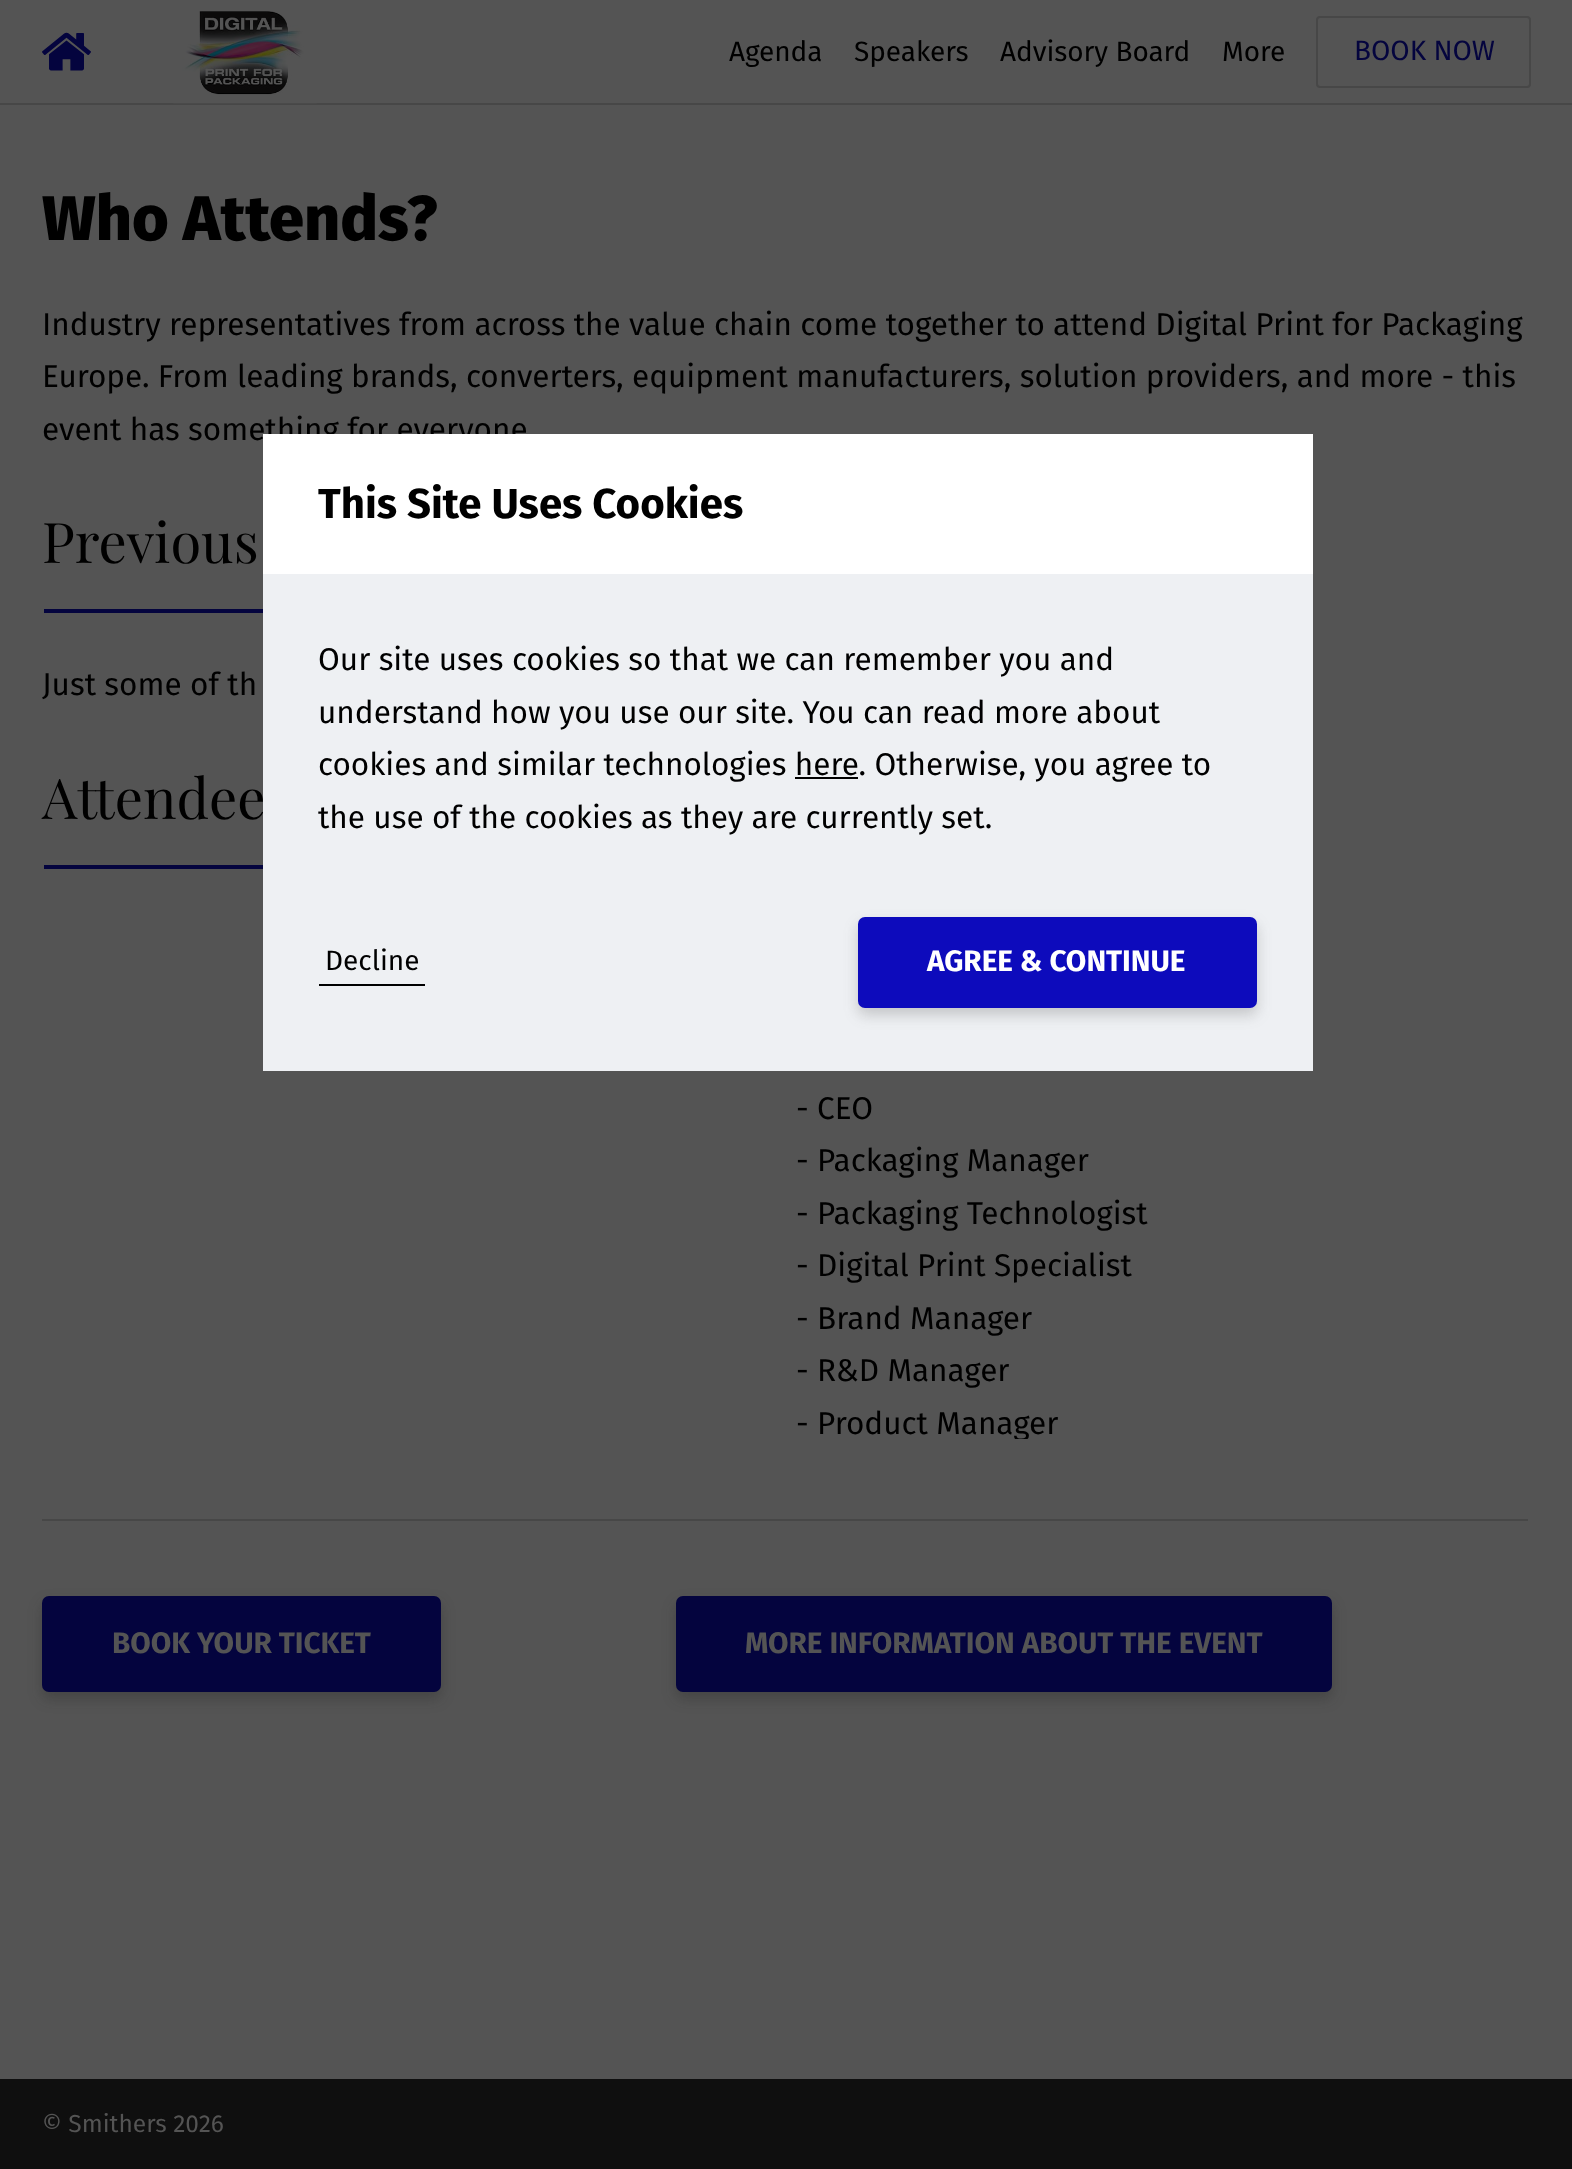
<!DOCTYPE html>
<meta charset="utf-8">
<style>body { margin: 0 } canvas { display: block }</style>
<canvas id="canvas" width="1572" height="2169"></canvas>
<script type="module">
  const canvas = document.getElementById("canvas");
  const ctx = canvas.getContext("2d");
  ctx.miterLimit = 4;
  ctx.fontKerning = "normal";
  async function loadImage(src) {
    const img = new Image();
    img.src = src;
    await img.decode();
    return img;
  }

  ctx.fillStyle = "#545454";
  ctx.fillRect(0, 0, 1572, 2169);
  ctx.fillStyle = "#474747";
  ctx.fillRect(0, 103, 1572, 2);
  ctx.drawImage(await loadImage("img1.png"), 42, 32, 49, 39);
  ctx.drawImage(await loadImage("img2.png"), 173, 11, 144, 93);
  ctx.letterSpacing = "-0.05px";
  ctx.font = "28px Fira Sans";
  ctx.fillStyle = "#000000";
  ctx.fillText("Agenda", 729, 61);
  ctx.fillText("Speakers", 854, 61);
  ctx.fillText("Advisory Board", 1000, 61);
  ctx.fillText("More", 1222, 61);
  ctx.beginPath();
  ctx.roundRect(1317, 17, 213, 70, 3);
  ctx.strokeStyle = "#474747";
  ctx.lineWidth = 2;
  ctx.stroke();
  ctx.fillStyle = "#04043e";
  ctx.fillText("BOOK NOW", 1354, 60);
  ctx.letterSpacing = "0px";
  ctx.font = "800 63px Fira Sans";
  ctx.fillStyle = "#000000";
  ctx.fillText("Who Attends?", 42, 240);
  ctx.font = "31.5px Fira Sans";
  ctx.fillText("Industry representatives from across the value chain come together to attend Digital Print for Packaging", 42, 335);
  ctx.fillText("Europe. From leading brands, converters, equipment manufacturers, solution providers, and more - this", 42, 387);
  ctx.fillText("event has something for everyone", 42, 440);
  ctx.font = "56px Playfair Display";
  ctx.fillText("Previous", 42, 563);
  ctx.fillStyle = "#04043e";
  ctx.fillRect(44, 609, 219, 4);
  ctx.font = "31.5px Fira Sans";
  ctx.fillStyle = "#000000";
  ctx.fillText("Just some of th", 42, 695);
  ctx.font = "56px Playfair Display";
  ctx.fillText("Attendee", 42, 819);
  ctx.fillStyle = "#04043e";
  ctx.fillRect(44, 865, 219, 4);
  ctx.font = "31.5px Fira Sans";
  ctx.fillStyle = "#000000";
  ctx.fillText("- CEO", 796, 1119);
  ctx.fillText("- Packaging Manager", 796, 1171);
  ctx.fillText("- Packaging Technologist", 796, 1224);
  ctx.fillText("- Digital Print Specialist", 796, 1276);
  ctx.fillText("- Brand Manager", 796, 1329);
  ctx.fillText("- R&D Manager", 796, 1381);
  ctx.save();
  ctx.beginPath();
  ctx.rect(796, 914, 700, 525);
  ctx.clip();
  ctx.fillText("- Product Manager", 796, 1434);
  ctx.restore();
  ctx.fillStyle = "#474747";
  ctx.fillRect(42, 1519, 1486, 2);
  ctx.fillStyle = "rgba(24, 24, 24, 0.25)";
  ctx.filter = "blur(7px)";
  ctx.beginPath();
  ctx.roundRect(42, 1603, 399, 96, 7);
  ctx.fill();
  ctx.filter = "none";
  ctx.fillStyle = "#04043e";
  ctx.beginPath();
  ctx.roundRect(42, 1596, 399, 96, 7);
  ctx.fill();
  ctx.letterSpacing = "-0.05px";
  ctx.font = "bold 29.75px Fira Sans";
  ctx.fillStyle = "#545454";
  ctx.fillText("BOOK YOUR TICKET", 112, 1653);
  ctx.fillStyle = "rgba(24, 24, 24, 0.25)";
  ctx.filter = "blur(7px)";
  ctx.beginPath();
  ctx.roundRect(676, 1603, 656, 96, 7);
  ctx.fill();
  ctx.filter = "none";
  ctx.fillStyle = "#04043e";
  ctx.beginPath();
  ctx.roundRect(676, 1596, 656, 96, 7);
  ctx.fill();
  ctx.fillStyle = "#545454";
  ctx.fillText("MORE INFORMATION ABOUT THE EVENT", 745, 1653);
  ctx.fillStyle = "#ffffff";
  ctx.fillRect(263, 434, 1050, 140);
  ctx.letterSpacing = "0px";
  ctx.font = "bold 42px Fira Sans";
  ctx.fillStyle = "#000000";
  ctx.fillText("This Site Uses Cookies", 318, 518);
  ctx.fillStyle = "#eef0f3";
  ctx.fillRect(263, 903, 1050, 168);
  ctx.fillStyle = "rgba(74, 74, 74, 0.25)";
  ctx.filter = "blur(7px)";
  ctx.beginPath();
  ctx.roundRect(858, 924, 399, 91, 7);
  ctx.fill();
  ctx.filter = "none";
  ctx.fillStyle = "#eef0f3";
  ctx.fillRect(263, 574, 1050, 329);
  ctx.font = "31.5px Fira Sans";
  ctx.fillStyle = "#000000";
  ctx.fillText("Our site uses cookies so that we can remember you and", 318, 670);
  ctx.fillText("understand how you use our site. You can read more about", 318, 723);
  ctx.fillText("cookies and similar technologies here. Otherwise, you agree to", 318, 775);
  ctx.fillRect(795, 777, 63, 2);
  ctx.fillText("the use of the cookies as they are currently set.", 318, 828);
  ctx.font = "28px Fira Sans";
  ctx.fillText("Decline", 325, 970);
  ctx.fillRect(319, 984, 106, 2);
  ctx.fillStyle = "#0d0bbc";
  ctx.beginPath();
  ctx.roundRect(858, 917, 399, 91, 7);
  ctx.fill();
  ctx.letterSpacing = "-0.05px";
  ctx.font = "bold 29.75px Fira Sans";
  ctx.fillStyle = "#ffffff";
  ctx.fillText("AGREE & CONTINUE", 927, 971);
  ctx.fillStyle = "#0f0f0f";
  ctx.fillRect(0, 2079, 1572, 90);
  ctx.letterSpacing = "0px";
  ctx.font = "24.5px Fira Sans";
  ctx.fillStyle = "#545454";
  ctx.fillText("© Smithers 2026", 42, 2132);
</script>
